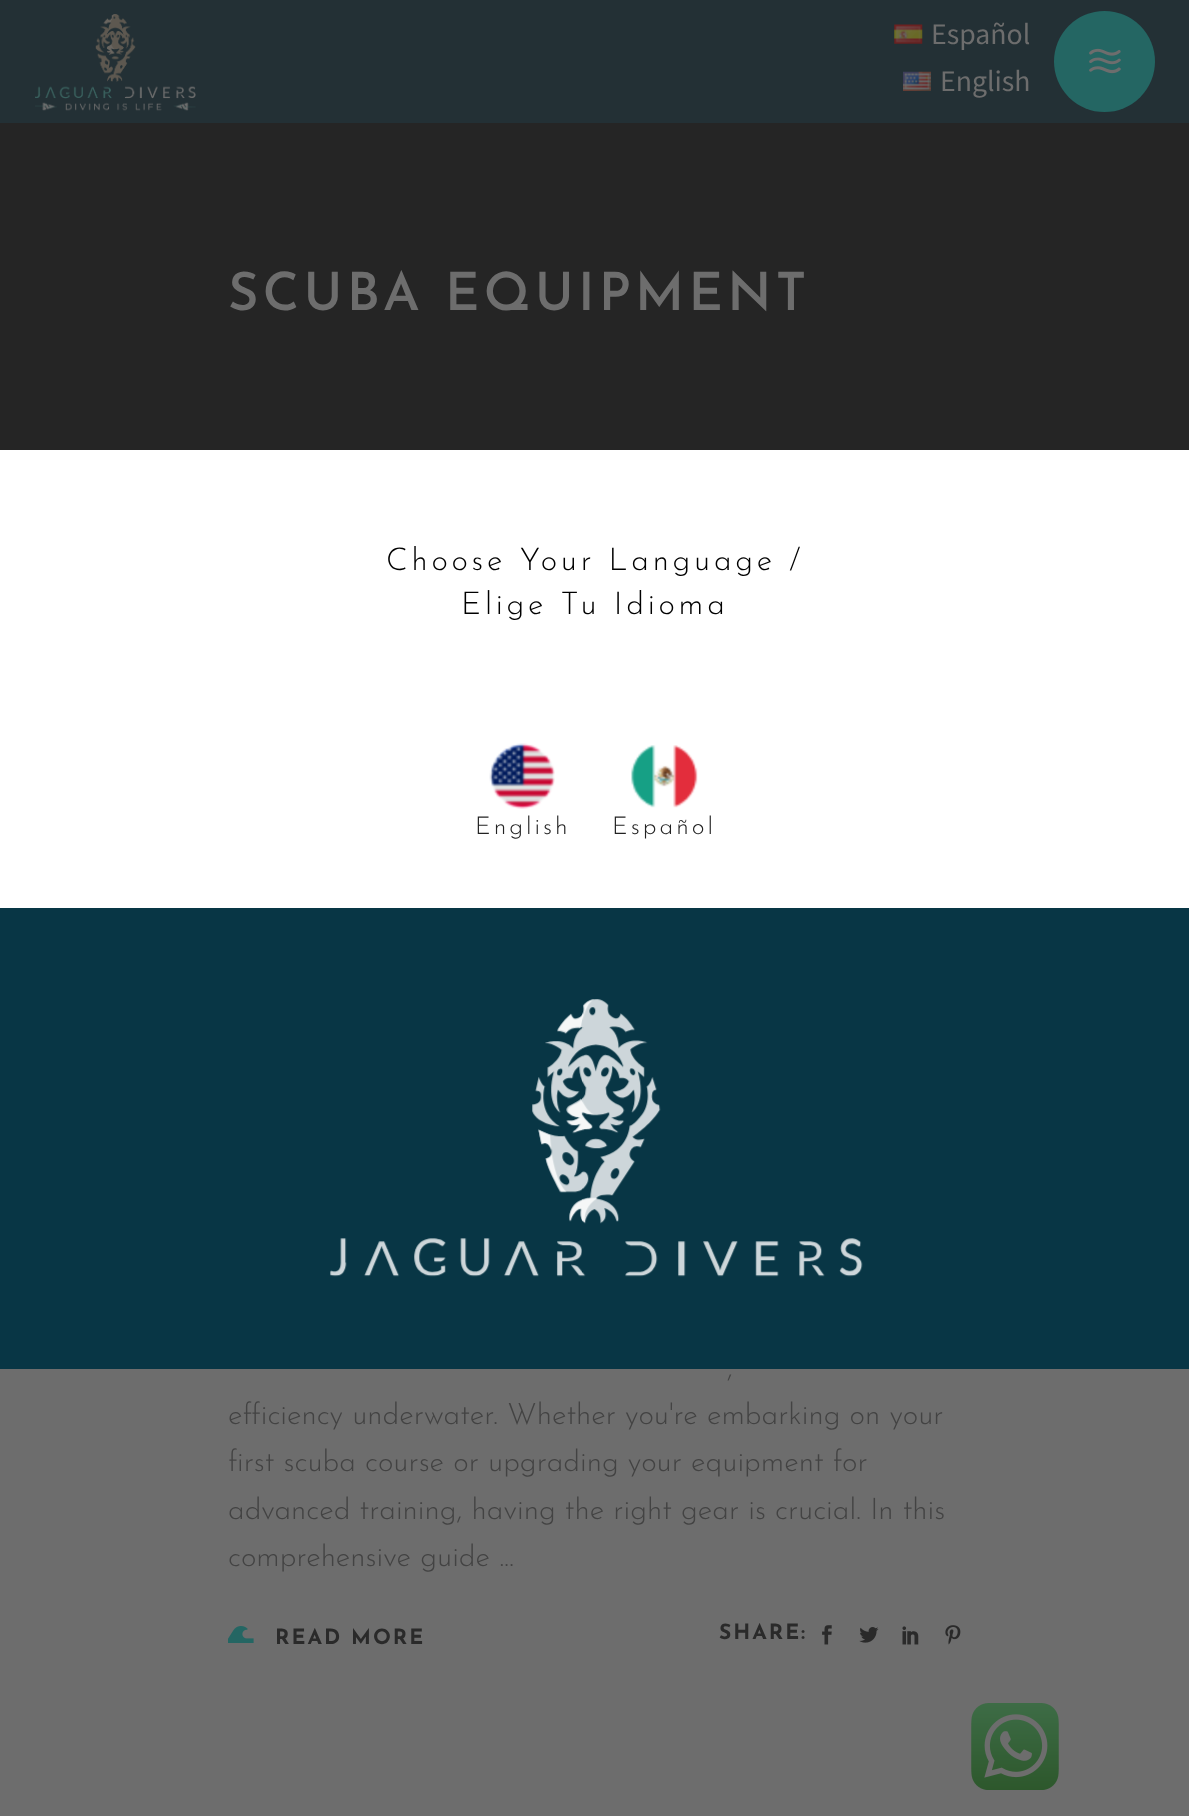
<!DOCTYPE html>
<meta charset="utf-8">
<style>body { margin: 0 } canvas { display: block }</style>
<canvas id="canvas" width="1189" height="1816"></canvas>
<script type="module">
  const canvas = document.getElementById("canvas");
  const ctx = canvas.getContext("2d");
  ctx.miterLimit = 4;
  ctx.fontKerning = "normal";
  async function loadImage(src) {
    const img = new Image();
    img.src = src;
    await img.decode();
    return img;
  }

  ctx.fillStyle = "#6d6d6d";
  ctx.fillRect(0, 0, 1189, 1816);
  ctx.fillStyle = "#233035";
  ctx.fillRect(0, 0, 1189, 123);
  ctx.drawImage(await loadImage("img1.png"), 35, 14, 161, 97);
  ctx.drawImage(await loadImage("img2.png"), 894, 24, 29, 20);
  ctx.font = "29.75px Source Sans Pro";
  ctx.fillStyle = "#6d6d6d";
  ctx.fillText("Español", 931, 44);
  ctx.drawImage(await loadImage("img3.png"), 903, 71, 28, 20);
  ctx.fillText("English", 940, 91);
  ctx.fillStyle = "#246663";
  ctx.beginPath();
  ctx.arc(1104.5, 61.5, 50.5, 0, Math.PI * 2);
  ctx.fill();
  ctx.drawImage(await loadImage("img4.png"), 1089, 48, 32, 26);
  ctx.fillStyle = "#252525";
  ctx.fillRect(0, 123, 1189, 327);
  ctx.letterSpacing = "4.25px";
  ctx.font = "600 52.5px Josefin Sans";
  ctx.fillStyle = "#6d6d6d";
  ctx.fillText("SCUBA EQUIPMENT", 228, 310);
  ctx.letterSpacing = "0px";
  ctx.font = "300 29.75px Josefin Sans";
  ctx.fillStyle = "#434343";
  ctx.fillText(",", 727, 1377);
  ctx.fillText("efficiency underwater. Whether you're embarking on your", 228, 1424);
  ctx.fillText("first scuba course or upgrading your equipment for", 228, 1471);
  ctx.fillText("advanced training, having the right gear is crucial. In this", 228, 1519);
  ctx.fillText("comprehensive guide ...", 228, 1566);
  ctx.drawImage(await loadImage("img5.png"), 228, 1626, 26, 17);
  ctx.letterSpacing = "2px";
  ctx.font = "bold 21px Josefin Sans";
  ctx.fillStyle = "#2a2a2a";
  ctx.fillText("READ MORE", 275, 1644);
  ctx.fillText("SHARE:", 719, 1639);
  ctx.drawImage(await loadImage("img6.png"), 822, 1625, 10, 20);
  ctx.drawImage(await loadImage("img7.png"), 859, 1627, 20, 16);
  ctx.drawImage(await loadImage("img8.png"), 902, 1626, 17, 19);
  ctx.drawImage(await loadImage("img9.png"), 945, 1625, 16, 20);
  ctx.fillStyle = "#ffffff";
  ctx.fillRect(0, 450, 1189, 458);
  ctx.letterSpacing = "3.75px";
  ctx.font = "300 31.5px Josefin Sans";
  ctx.fillStyle = "#000000";
  ctx.fillText("Choose Your Language /", 386, 570);
  ctx.fillText("Elige Tu Idioma", 461, 614);
  ctx.drawImage(await loadImage("img10.png"), 489, 743, 66, 66);
  ctx.letterSpacing = "3px";
  ctx.font = "300 24.5px Josefin Sans";
  ctx.fillStyle = "#222222";
  ctx.fillText("English", 475, 834);
  ctx.drawImage(await loadImage("img11.png"), 631, 745, 67, 63);
  ctx.fillText("Español", 612, 834);
  ctx.fillStyle = "#083645";
  ctx.fillRect(0, 908, 1189, 461);
  ctx.drawImage(await loadImage("img12.png"), 330, 999, 533, 278);
  ctx.drawImage(await loadImage("img13.png"), 971, 1703, 88, 87);
</script>
